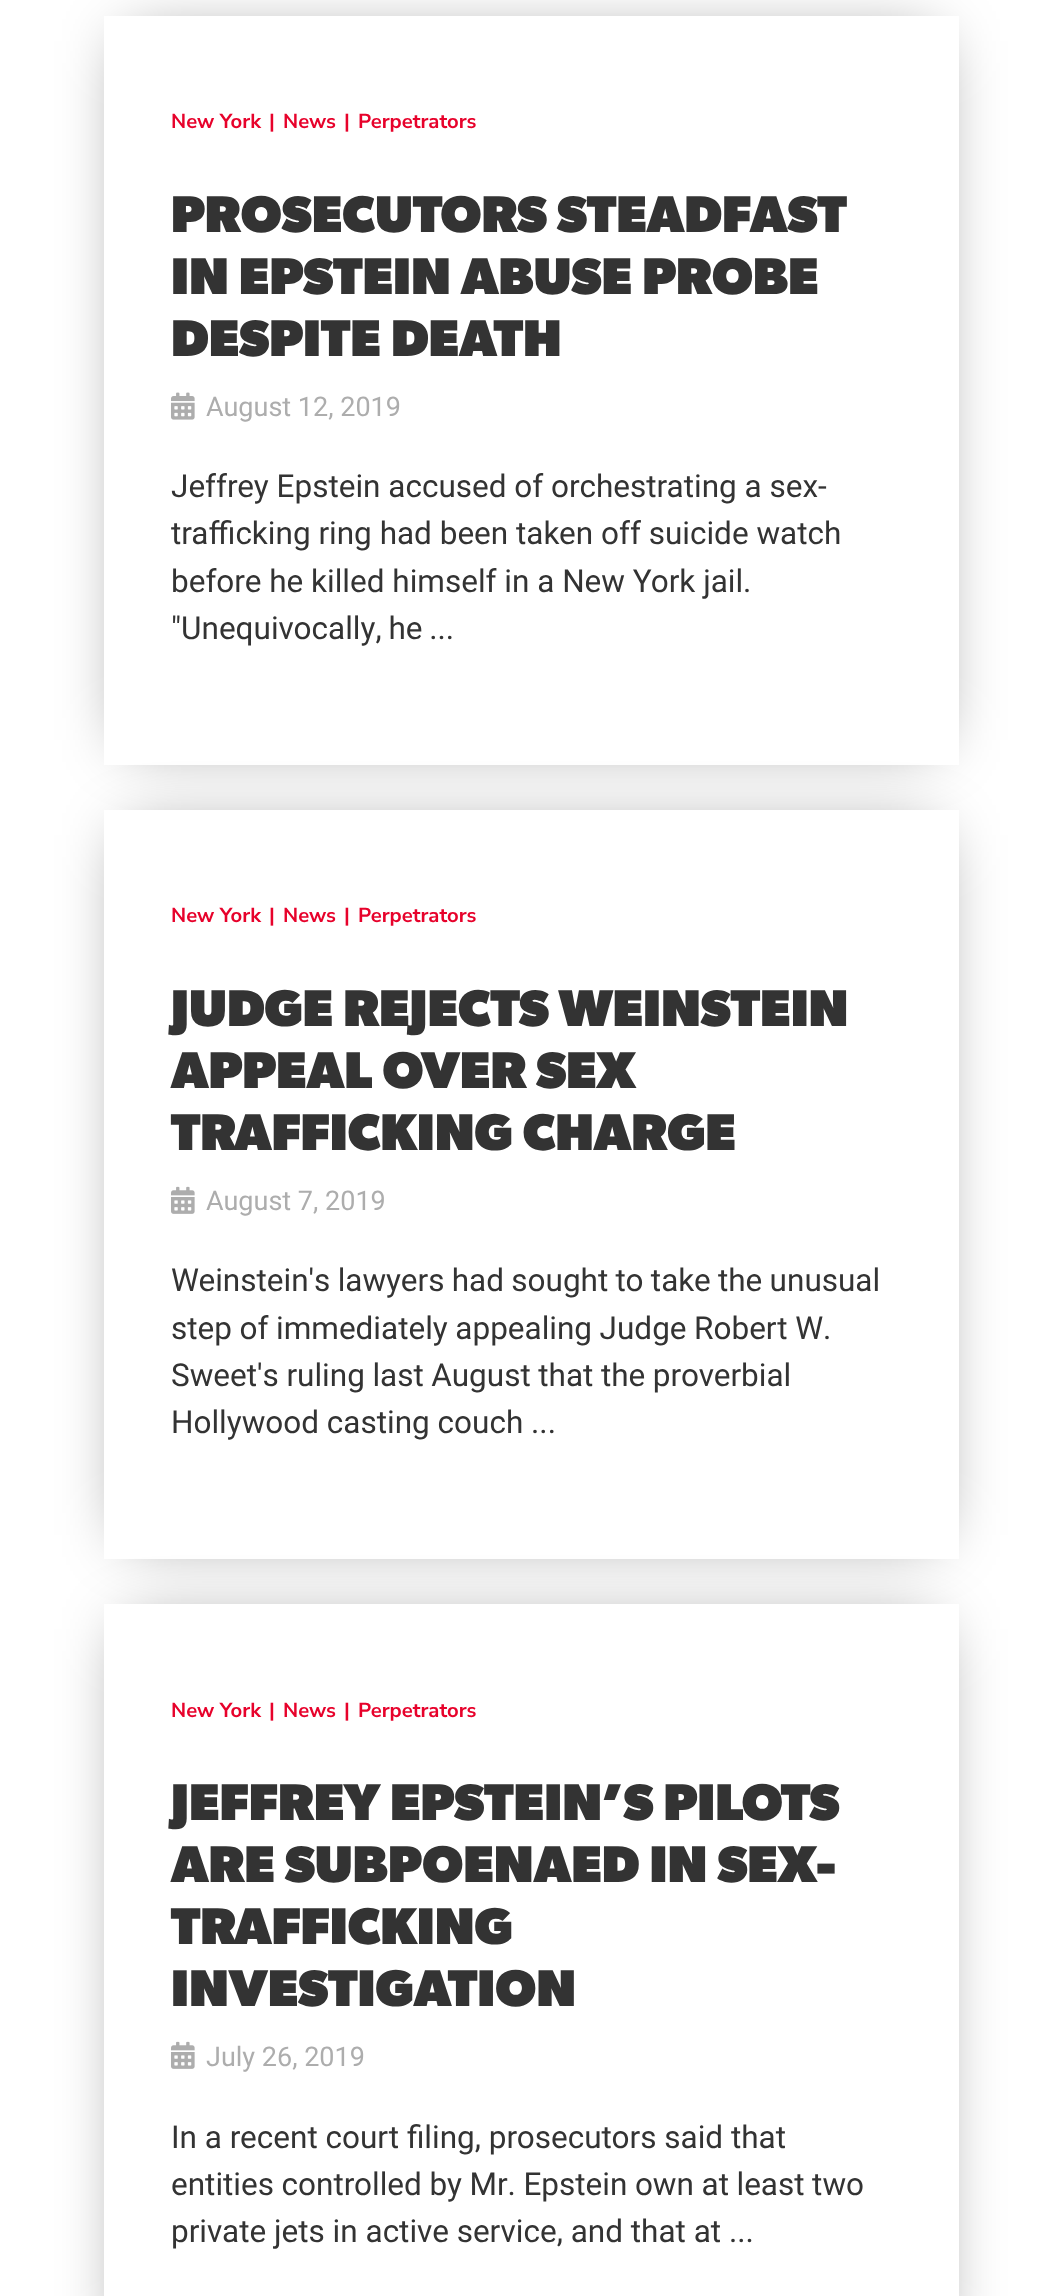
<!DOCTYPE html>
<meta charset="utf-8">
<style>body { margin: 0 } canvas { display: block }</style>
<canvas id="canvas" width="1060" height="2296"></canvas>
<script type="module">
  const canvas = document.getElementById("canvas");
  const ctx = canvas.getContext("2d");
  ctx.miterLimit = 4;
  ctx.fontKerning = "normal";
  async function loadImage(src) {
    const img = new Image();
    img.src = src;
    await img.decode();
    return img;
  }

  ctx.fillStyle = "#ffffff";
  ctx.fillRect(0, 0, 1060, 2296);
  ctx.fillStyle = "rgba(0, 0, 0, 0.5)";
  ctx.filter = "blur(32.5px)";
  ctx.beginPath();
  ctx.rect(128, 41, 806, 699);
  ctx.fill();
  ctx.filter = "none";
  ctx.fillStyle = "#ffffff";
  ctx.fillRect(104, 16, 855, 749);
  ctx.font = "bold 20.25px Nunito Sans";
  ctx.fillStyle = "#e7022b";
  ctx.fillText("New York", 171, 128);
  ctx.fillText("|", 269, 128);
  ctx.fillText("News", 283, 128);
  ctx.fillText("|", 344, 128);
  ctx.fillText("Perpetrators", 358, 128);
  ctx.font = "900 51.75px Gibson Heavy";
  ctx.fillStyle = "#333333";
  ctx.fillText("PROSECUTORS STEADFAST", 171, 232);
  ctx.fillText("IN EPSTEIN ABUSE PROBE", 171, 294);
  ctx.fillText("DESPITE DEATH", 171, 356);
  ctx.drawImage(await loadImage("img1.png"), 171, 392, 24, 28);
  ctx.font = "27px Roboto";
  ctx.fillStyle = "#adadad";
  ctx.fillText("August 12, 2019", 206, 416);
  ctx.font = "31.5px Roboto";
  ctx.fillStyle = "#333333";
  ctx.fillText("Jeffrey Epstein accused of orchestrating a sex-", 171, 497);
  ctx.fillText("trafficking ring had been taken off suicide watch", 171, 544);
  ctx.fillText("before he killed himself in a New York jail.", 171, 592);
  ctx.wordSpacing = "-1px";
  ctx.fillText("\"Unequivocally, he ...", 171, 639);
  ctx.fillStyle = "rgba(0, 0, 0, 0.5)";
  ctx.filter = "blur(32.5px)";
  ctx.beginPath();
  ctx.rect(128, 835, 806, 700);
  ctx.fill();
  ctx.filter = "none";
  ctx.fillStyle = "#ffffff";
  ctx.fillRect(104, 810, 855, 749);
  ctx.wordSpacing = "0px";
  ctx.font = "bold 20.25px Nunito Sans";
  ctx.fillStyle = "#e7022b";
  ctx.fillText("New York", 171, 922);
  ctx.fillText("|", 269, 922);
  ctx.fillText("News", 283, 922);
  ctx.fillText("|", 344, 922);
  ctx.fillText("Perpetrators", 358, 922);
  ctx.font = "900 51.75px Gibson Heavy";
  ctx.fillStyle = "#333333";
  ctx.fillText("JUDGE REJECTS WEINSTEIN", 171, 1026);
  ctx.fillText("APPEAL OVER SEX", 171, 1088);
  ctx.fillText("TRAFFICKING CHARGE", 171, 1150);
  ctx.drawImage(await loadImage("img2.png"), 171, 1186, 24, 28);
  ctx.font = "27px Roboto";
  ctx.fillStyle = "#adadad";
  ctx.fillText("August 7, 2019", 206, 1210);
  ctx.wordSpacing = "-0.5px";
  ctx.font = "31.5px Roboto";
  ctx.fillStyle = "#333333";
  ctx.fillText("Weinstein's lawyers had sought to take the unusual", 171, 1291);
  ctx.wordSpacing = "-0.25px";
  ctx.fillText("step of immediately appealing Judge Robert W.", 171, 1339);
  ctx.fillText("Sweet's ruling last August that the proverbial", 171, 1386);
  ctx.wordSpacing = "0px";
  ctx.fillText("Hollywood casting couch ...", 171, 1433);
  ctx.fillStyle = "rgba(0, 0, 0, 0.5)";
  ctx.filter = "blur(32.5px)";
  ctx.beginPath();
  ctx.rect(128, 1629, 806, 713);
  ctx.fill();
  ctx.filter = "none";
  ctx.fillStyle = "#ffffff";
  ctx.fillRect(104, 1604, 855, 692);
  ctx.font = "bold 20.25px Nunito Sans";
  ctx.fillStyle = "#e7022b";
  ctx.fillText("New York", 171, 1717);
  ctx.fillText("|", 269, 1717);
  ctx.fillText("News", 283, 1717);
  ctx.fillText("|", 344, 1717);
  ctx.fillText("Perpetrators", 358, 1717);
  ctx.font = "900 51.75px Gibson Heavy";
  ctx.fillStyle = "#333333";
  ctx.fillText("JEFFREY EPSTEIN’S PILOTS", 171, 1820);
  ctx.fillText("ARE SUBPOENAED IN SEX-", 171, 1882);
  ctx.fillText("TRAFFICKING", 171, 1944);
  ctx.fillText("INVESTIGATION", 171, 2006);
  ctx.drawImage(await loadImage("img2.png"), 171, 2041, 24, 28);
  ctx.font = "27px Roboto";
  ctx.fillStyle = "#adadad";
  ctx.fillText("July 26, 2019", 206, 2066);
  ctx.font = "31.5px Roboto";
  ctx.fillStyle = "#333333";
  ctx.fillText("In a recent court filing, prosecutors said that", 171, 2148);
  ctx.wordSpacing = "-0.25px";
  ctx.fillText("entities controlled by Mr. Epstein own at least two", 171, 2195);
  ctx.wordSpacing = "0px";
  ctx.fillText("private jets in active service, and that at ...", 171, 2242);
</script>
